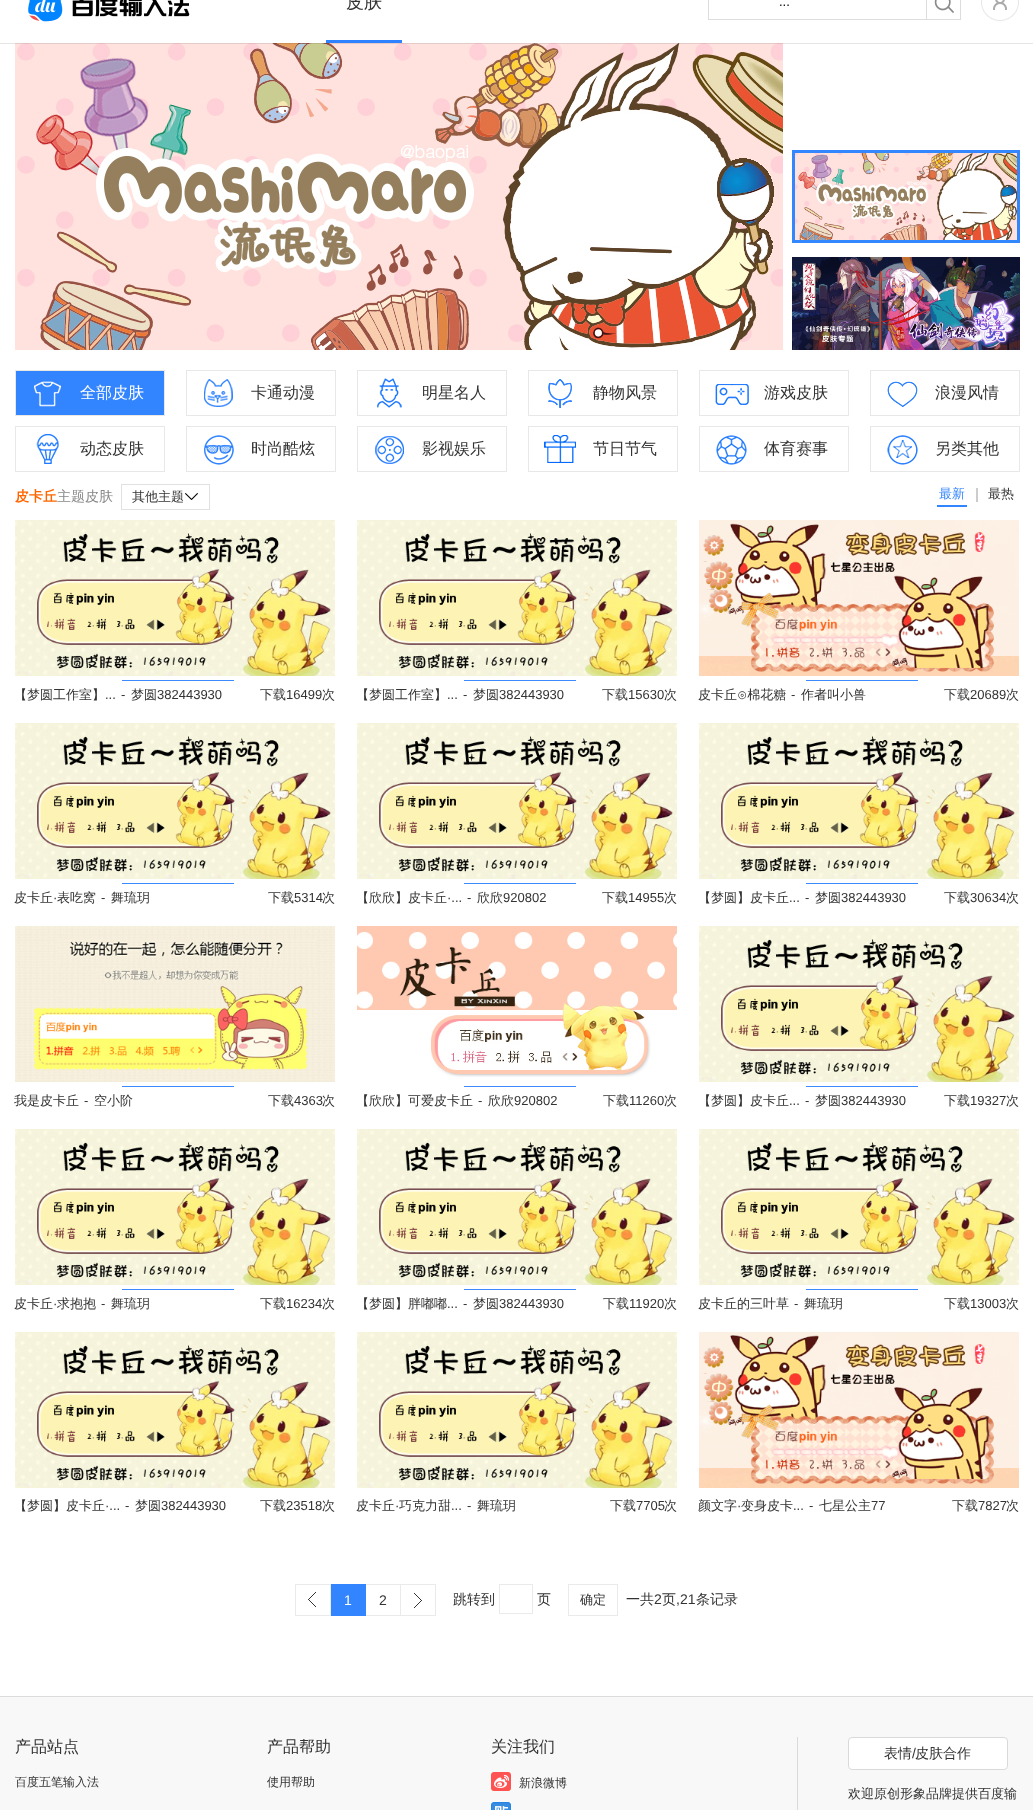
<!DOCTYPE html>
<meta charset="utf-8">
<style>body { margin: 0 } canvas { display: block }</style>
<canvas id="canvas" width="1033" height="1810"></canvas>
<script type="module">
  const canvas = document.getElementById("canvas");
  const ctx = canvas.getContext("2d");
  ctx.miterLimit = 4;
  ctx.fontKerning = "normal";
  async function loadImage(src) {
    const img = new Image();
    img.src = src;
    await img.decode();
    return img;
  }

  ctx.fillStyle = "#ffffff";
  ctx.fillRect(0, 0, 1033, 1810);
  ctx.drawImage(await loadImage("img1.png"), 28, 0, 162, 22);
  ctx.font = "500 18px WenQuanYi Zen Hei";
  ctx.fillStyle = "#333333";
  ctx.fillText("皮肤", 346, 8);
  ctx.fillStyle = "#2e82ff";
  ctx.fillRect(326, 40, 76, 3);
  ctx.fillStyle = "#dddddd";
  ctx.fillRect(708, 19, 218, 1);
  ctx.fillRect(708, 0, 1, 20);
  ctx.font = "13px Liberation Sans";
  ctx.fillStyle = "#000000";
  ctx.fillText("...", 779, 6);
  ctx.drawImage(await loadImage("img2.png"), 934, 0, 20, 13);
  ctx.strokeStyle = "#dddddd";
  ctx.strokeRect(926.5, -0.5, 34, 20);
  ctx.drawImage(await loadImage("img3.png"), 981, 0, 38, 21);
  ctx.drawImage(await loadImage("img4.png"), 15, 43, 768, 307);
  ctx.fillStyle = "rgba(0, 0, 0, 0.1)";
  ctx.fillRect(0, 43, 1033, 1);
  ctx.drawImage(await loadImage("img5.png"), 795, 153, 222, 87);
  ctx.strokeStyle = "#3286fe";
  ctx.lineWidth = 3;
  ctx.strokeRect(793.5, 151.5, 225, 90);
  ctx.drawImage(await loadImage("img6.png"), 792, 257, 228, 93);
  ctx.fillStyle = "#3385ff";
  ctx.beginPath();
  ctx.rect(15.5, 370.5, 149, 45);
  ctx.fill();
  ctx.strokeStyle = "#e8e8e8";
  ctx.lineWidth = 1;
  ctx.stroke();
  ctx.drawImage(await loadImage("img7.png"), 34, 381, 27, 26);
  ctx.font = "500 16px WenQuanYi Zen Hei";
  ctx.fillStyle = "#ffffff";
  ctx.fillText("全部皮肤", 80, 398);
  ctx.strokeRect(186.5, 370.5, 149, 45);
  ctx.drawImage(await loadImage("img8.png"), 204, 379, 29, 28);
  ctx.fillStyle = "#333333";
  ctx.fillText("卡通动漫", 251, 398);
  ctx.strokeRect(357.5, 370.5, 149, 45);
  ctx.drawImage(await loadImage("img9.png"), 377, 378, 25, 30);
  ctx.fillText("明星名人", 422, 398);
  ctx.strokeRect(528.5, 370.5, 149, 45);
  ctx.drawImage(await loadImage("img10.png"), 548, 379, 24, 29);
  ctx.fillText("静物风景", 593, 398);
  ctx.strokeRect(699.5, 370.5, 149, 45);
  ctx.drawImage(await loadImage("img11.png"), 715, 384, 34, 21);
  ctx.fillText("游戏皮肤", 764, 398);
  ctx.strokeRect(870.5, 370.5, 149, 45);
  ctx.drawImage(await loadImage("img12.png"), 887, 381, 31, 26);
  ctx.fillText("浪漫风情", 935, 398);
  ctx.strokeRect(15.5, 426.5, 149, 45);
  ctx.drawImage(await loadImage("img13.png"), 36, 434, 23, 30);
  ctx.fillText("动态皮肤", 80, 454);
  ctx.strokeRect(186.5, 426.5, 149, 45);
  ctx.drawImage(await loadImage("img14.png"), 204, 435, 30, 30);
  ctx.fillText("时尚酷炫", 251, 454);
  ctx.strokeRect(357.5, 426.5, 149, 45);
  ctx.drawImage(await loadImage("img15.png"), 375, 436, 29, 28);
  ctx.fillText("影视娱乐", 422, 454);
  ctx.strokeRect(528.5, 426.5, 149, 45);
  ctx.drawImage(await loadImage("img16.png"), 544, 435, 32, 28);
  ctx.fillText("节日节气", 593, 454);
  ctx.strokeRect(699.5, 426.5, 149, 45);
  ctx.drawImage(await loadImage("img17.png"), 716, 435, 31, 30);
  ctx.fillText("体育赛事", 764, 454);
  ctx.strokeRect(870.5, 426.5, 149, 45);
  ctx.drawImage(await loadImage("img18.png"), 887, 435, 31, 30);
  ctx.fillText("另类其他", 935, 454);
  ctx.font = "bold 14px WenQuanYi Zen Hei";
  ctx.fillStyle = "#ff6600";
  ctx.fillText("皮卡丘", 15, 501);
  ctx.font = "500 14px WenQuanYi Zen Hei";
  ctx.fillStyle = "#888888";
  ctx.fillText("主题皮肤", 57, 501);
  ctx.strokeStyle = "#e1e1e1";
  ctx.strokeRect(121.5, 484.5, 88, 25);
  ctx.font = "500 13px WenQuanYi Zen Hei";
  ctx.fillStyle = "#333333";
  ctx.fillText("其他主题", 132, 501);
  ctx.drawImage(await loadImage("img19.png"), 185, 493, 13, 7);
  ctx.fillStyle = "#3385ff";
  ctx.fillRect(937, 505, 30, 2);
  ctx.fillText("最新", 939, 498);
  ctx.fillStyle = "#cccccc";
  ctx.fillRect(976, 488, 2, 14);
  ctx.fillStyle = "#333333";
  ctx.fillText("最热", 988, 498);
  ctx.drawImage(await loadImage("img20.png"), 15, 520, 320, 156);
  ctx.drawImage(await loadImage("img21.png"), 122, 680, 112, 1);
  ctx.fillText("【梦圆工作室】", 14, 699);
  ctx.font = "13px Liberation Sans";
  ctx.fillText("...", 105, 699);
  ctx.fillText("-", 121, 699);
  ctx.font = "500 13px WenQuanYi Zen Hei";
  ctx.fillText("梦圆", 131, 699);
  ctx.font = "13px Liberation Sans";
  ctx.fillText("382443930", 157, 699);
  ctx.font = "500 13px WenQuanYi Zen Hei";
  ctx.fillText("下载", 260, 699);
  ctx.font = "13px Liberation Sans";
  ctx.fillText("16499", 286, 699);
  ctx.font = "500 13px WenQuanYi Zen Hei";
  ctx.fillText("次", 322, 699);
  ctx.drawImage(await loadImage("img20.png"), 357, 520, 320, 156);
  ctx.drawImage(await loadImage("img21.png"), 464, 680, 112, 1);
  ctx.fillText("【梦圆工作室】", 356, 699);
  ctx.font = "13px Liberation Sans";
  ctx.fillText("...", 447, 699);
  ctx.fillText("-", 463, 699);
  ctx.font = "500 13px WenQuanYi Zen Hei";
  ctx.fillText("梦圆", 473, 699);
  ctx.font = "13px Liberation Sans";
  ctx.fillText("382443930", 499, 699);
  ctx.font = "500 13px WenQuanYi Zen Hei";
  ctx.fillText("下载", 602, 699);
  ctx.font = "13px Liberation Sans";
  ctx.fillText("15630", 628, 699);
  ctx.font = "500 13px WenQuanYi Zen Hei";
  ctx.fillText("次", 664, 699);
  ctx.drawImage(await loadImage("img22.png"), 699, 520, 320, 156);
  ctx.drawImage(await loadImage("img21.png"), 806, 680, 112, 1);
  ctx.fillText("皮卡丘⊙棉花糖", 698, 699);
  ctx.font = "13px Liberation Sans";
  ctx.fillText("-", 791, 699);
  ctx.font = "500 13px WenQuanYi Zen Hei";
  ctx.fillText("作者叫小兽", 801, 699);
  ctx.fillText("下载", 944, 699);
  ctx.font = "13px Liberation Sans";
  ctx.fillText("20689", 970, 699);
  ctx.font = "500 13px WenQuanYi Zen Hei";
  ctx.fillText("次", 1006, 699);
  ctx.drawImage(await loadImage("img23.png"), 15, 723, 320, 156);
  ctx.drawImage(await loadImage("img21.png"), 122, 883, 112, 1);
  ctx.fillText("皮卡丘", 14, 902);
  ctx.font = "13px Liberation Sans";
  ctx.fillText("·", 53, 902);
  ctx.font = "500 13px WenQuanYi Zen Hei";
  ctx.fillText("表吃窝", 57, 902);
  ctx.font = "13px Liberation Sans";
  ctx.fillText("-", 101, 902);
  ctx.font = "500 13px WenQuanYi Zen Hei";
  ctx.fillText("舞琉玥", 111, 902);
  ctx.fillText("下载", 268, 902);
  ctx.font = "13px Liberation Sans";
  ctx.fillText("5314", 294, 902);
  ctx.font = "500 13px WenQuanYi Zen Hei";
  ctx.fillText("次", 322, 902);
  ctx.drawImage(await loadImage("img23.png"), 357, 723, 320, 156);
  ctx.drawImage(await loadImage("img21.png"), 464, 883, 112, 1);
  ctx.fillText("【欣欣】皮卡丘", 356, 902);
  ctx.font = "13px Liberation Sans";
  ctx.fillText("·...", 447, 902);
  ctx.fillText("-", 467, 902);
  ctx.font = "500 13px WenQuanYi Zen Hei";
  ctx.fillText("欣欣", 477, 902);
  ctx.font = "13px Liberation Sans";
  ctx.fillText("920802", 503, 902);
  ctx.font = "500 13px WenQuanYi Zen Hei";
  ctx.fillText("下载", 602, 902);
  ctx.font = "13px Liberation Sans";
  ctx.fillText("14955", 628, 902);
  ctx.font = "500 13px WenQuanYi Zen Hei";
  ctx.fillText("次", 664, 902);
  ctx.drawImage(await loadImage("img23.png"), 699, 723, 320, 156);
  ctx.drawImage(await loadImage("img21.png"), 806, 883, 112, 1);
  ctx.fillText("【梦圆】皮卡丘", 698, 902);
  ctx.font = "13px Liberation Sans";
  ctx.fillText("...", 789, 902);
  ctx.fillText("-", 805, 902);
  ctx.font = "500 13px WenQuanYi Zen Hei";
  ctx.fillText("梦圆", 815, 902);
  ctx.font = "13px Liberation Sans";
  ctx.fillText("382443930", 841, 902);
  ctx.font = "500 13px WenQuanYi Zen Hei";
  ctx.fillText("下载", 944, 902);
  ctx.font = "13px Liberation Sans";
  ctx.fillText("30634", 970, 902);
  ctx.font = "500 13px WenQuanYi Zen Hei";
  ctx.fillText("次", 1006, 902);
  ctx.drawImage(await loadImage("img24.png"), 15, 926, 320, 156);
  ctx.drawImage(await loadImage("img21.png"), 122, 1086, 112, 1);
  ctx.fillText("我是皮卡丘", 14, 1105);
  ctx.font = "13px Liberation Sans";
  ctx.fillText("-", 84, 1105);
  ctx.font = "500 13px WenQuanYi Zen Hei";
  ctx.fillText("空小阶", 94, 1105);
  ctx.fillText("下载", 268, 1105);
  ctx.font = "13px Liberation Sans";
  ctx.fillText("4363", 294, 1105);
  ctx.font = "500 13px WenQuanYi Zen Hei";
  ctx.fillText("次", 322, 1105);
  ctx.drawImage(await loadImage("img25.png"), 357, 926, 320, 151);
  ctx.drawImage(await loadImage("img21.png"), 464, 1086, 112, 1);
  ctx.fillText("【欣欣】可爱皮卡丘", 356, 1105);
  ctx.font = "13px Liberation Sans";
  ctx.fillText("-", 478, 1105);
  ctx.font = "500 13px WenQuanYi Zen Hei";
  ctx.fillText("欣欣", 488, 1105);
  ctx.font = "13px Liberation Sans";
  ctx.fillText("920802", 514, 1105);
  ctx.font = "500 13px WenQuanYi Zen Hei";
  ctx.fillText("下载", 603, 1105);
  ctx.font = "13px Liberation Sans";
  ctx.fillText("11260", 629, 1105);
  ctx.font = "500 13px WenQuanYi Zen Hei";
  ctx.fillText("次", 664, 1105);
  ctx.drawImage(await loadImage("img23.png"), 699, 926, 320, 156);
  ctx.drawImage(await loadImage("img21.png"), 806, 1086, 112, 1);
  ctx.fillText("【梦圆】皮卡丘", 698, 1105);
  ctx.font = "13px Liberation Sans";
  ctx.fillText("...", 789, 1105);
  ctx.fillText("-", 805, 1105);
  ctx.font = "500 13px WenQuanYi Zen Hei";
  ctx.fillText("梦圆", 815, 1105);
  ctx.font = "13px Liberation Sans";
  ctx.fillText("382443930", 841, 1105);
  ctx.font = "500 13px WenQuanYi Zen Hei";
  ctx.fillText("下载", 944, 1105);
  ctx.font = "13px Liberation Sans";
  ctx.fillText("19327", 970, 1105);
  ctx.font = "500 13px WenQuanYi Zen Hei";
  ctx.fillText("次", 1006, 1105);
  ctx.drawImage(await loadImage("img26.png"), 15, 1129, 320, 156);
  ctx.drawImage(await loadImage("img21.png"), 122, 1289, 112, 1);
  ctx.fillText("皮卡丘", 14, 1308);
  ctx.font = "13px Liberation Sans";
  ctx.fillText("·", 53, 1308);
  ctx.font = "500 13px WenQuanYi Zen Hei";
  ctx.fillText("求抱抱", 57, 1308);
  ctx.font = "13px Liberation Sans";
  ctx.fillText("-", 101, 1308);
  ctx.font = "500 13px WenQuanYi Zen Hei";
  ctx.fillText("舞琉玥", 111, 1308);
  ctx.fillText("下载", 260, 1308);
  ctx.font = "13px Liberation Sans";
  ctx.fillText("16234", 286, 1308);
  ctx.font = "500 13px WenQuanYi Zen Hei";
  ctx.fillText("次", 322, 1308);
  ctx.drawImage(await loadImage("img26.png"), 357, 1129, 320, 156);
  ctx.drawImage(await loadImage("img21.png"), 464, 1289, 112, 1);
  ctx.fillText("【梦圆】胖嘟嘟", 356, 1308);
  ctx.font = "13px Liberation Sans";
  ctx.fillText("...", 447, 1308);
  ctx.fillText("-", 463, 1308);
  ctx.font = "500 13px WenQuanYi Zen Hei";
  ctx.fillText("梦圆", 473, 1308);
  ctx.font = "13px Liberation Sans";
  ctx.fillText("382443930", 499, 1308);
  ctx.font = "500 13px WenQuanYi Zen Hei";
  ctx.fillText("下载", 603, 1308);
  ctx.font = "13px Liberation Sans";
  ctx.fillText("11920", 629, 1308);
  ctx.font = "500 13px WenQuanYi Zen Hei";
  ctx.fillText("次", 664, 1308);
  ctx.drawImage(await loadImage("img26.png"), 699, 1129, 320, 156);
  ctx.drawImage(await loadImage("img21.png"), 806, 1289, 112, 1);
  ctx.fillText("皮卡丘的三叶草", 698, 1308);
  ctx.font = "13px Liberation Sans";
  ctx.fillText("-", 794, 1308);
  ctx.font = "500 13px WenQuanYi Zen Hei";
  ctx.fillText("舞琉玥", 804, 1308);
  ctx.fillText("下载", 944, 1308);
  ctx.font = "13px Liberation Sans";
  ctx.fillText("13003", 970, 1308);
  ctx.font = "500 13px WenQuanYi Zen Hei";
  ctx.fillText("次", 1006, 1308);
  ctx.drawImage(await loadImage("img23.png"), 15, 1332, 320, 156);
  ctx.fillText("【梦圆】皮卡丘", 14, 1510);
  ctx.font = "13px Liberation Sans";
  ctx.fillText("·...", 105, 1510);
  ctx.fillText("-", 125, 1510);
  ctx.font = "500 13px WenQuanYi Zen Hei";
  ctx.fillText("梦圆", 135, 1510);
  ctx.font = "13px Liberation Sans";
  ctx.fillText("382443930", 161, 1510);
  ctx.font = "500 13px WenQuanYi Zen Hei";
  ctx.fillText("下载", 260, 1510);
  ctx.font = "13px Liberation Sans";
  ctx.fillText("23518", 286, 1510);
  ctx.font = "500 13px WenQuanYi Zen Hei";
  ctx.fillText("次", 322, 1510);
  ctx.drawImage(await loadImage("img23.png"), 357, 1332, 320, 156);
  ctx.fillText("皮卡丘", 356, 1510);
  ctx.font = "13px Liberation Sans";
  ctx.fillText("·", 395, 1510);
  ctx.font = "500 13px WenQuanYi Zen Hei";
  ctx.fillText("巧克力甜", 399, 1510);
  ctx.font = "13px Liberation Sans";
  ctx.fillText("...", 451, 1510);
  ctx.fillText("-", 467, 1510);
  ctx.font = "500 13px WenQuanYi Zen Hei";
  ctx.fillText("舞琉玥", 477, 1510);
  ctx.fillText("下载", 610, 1510);
  ctx.font = "13px Liberation Sans";
  ctx.fillText("7705", 636, 1510);
  ctx.font = "500 13px WenQuanYi Zen Hei";
  ctx.fillText("次", 664, 1510);
  ctx.drawImage(await loadImage("img27.png"), 699, 1332, 320, 156);
  ctx.fillText("颜文字", 698, 1510);
  ctx.font = "13px Liberation Sans";
  ctx.fillText("·", 737, 1510);
  ctx.font = "500 13px WenQuanYi Zen Hei";
  ctx.fillText("变身皮卡", 741, 1510);
  ctx.font = "13px Liberation Sans";
  ctx.fillText("...", 793, 1510);
  ctx.fillText("-", 809, 1510);
  ctx.font = "500 13px WenQuanYi Zen Hei";
  ctx.fillText("七星公主", 819, 1510);
  ctx.font = "13px Liberation Sans";
  ctx.fillText("77", 871, 1510);
  ctx.font = "500 13px WenQuanYi Zen Hei";
  ctx.fillText("下载", 952, 1510);
  ctx.font = "13px Liberation Sans";
  ctx.fillText("7827", 978, 1510);
  ctx.font = "500 13px WenQuanYi Zen Hei";
  ctx.fillText("次", 1006, 1510);
  ctx.drawImage(await loadImage("img28.png"), 308, 1592, 8, 15);
  ctx.strokeStyle = "#eaeaea";
  ctx.strokeRect(295.5, 1584.5, 35, 31);
  ctx.fillStyle = "#3385ff";
  ctx.fillRect(331, 1584, 35, 32);
  ctx.font = "14px Liberation Sans";
  ctx.fillStyle = "#ffffff";
  ctx.fillText("1", 344, 1605);
  ctx.fillStyle = "#eaeaea";
  ctx.fillRect(366, 1584, 70, 1);
  ctx.fillRect(400, 1584, 1, 32);
  ctx.fillRect(366, 1615, 35, 1);
  ctx.fillStyle = "#333333";
  ctx.fillText("2", 379, 1605);
  ctx.drawImage(await loadImage("img29.png"), 414, 1593, 8, 15);
  ctx.fillStyle = "#eaeaea";
  ctx.fillRect(435, 1584, 1, 32);
  ctx.fillRect(401, 1615, 35, 1);
  ctx.font = "500 14px WenQuanYi Zen Hei";
  ctx.fillStyle = "#333333";
  ctx.fillText("跳转到", 453, 1604);
  ctx.strokeRect(499.5, 1584.5, 33, 29);
  ctx.fillText("页", 537, 1604);
  ctx.strokeRect(568.5, 1584.5, 49, 31);
  ctx.font = "500 13px WenQuanYi Zen Hei";
  ctx.fillText("确定", 580, 1604);
  ctx.font = "500 14px WenQuanYi Zen Hei";
  ctx.fillText("一共", 626, 1604);
  ctx.font = "14px Liberation Sans";
  ctx.fillText("2", 654, 1604);
  ctx.font = "500 14px WenQuanYi Zen Hei";
  ctx.fillText("页", 662, 1604);
  ctx.font = "14px Liberation Sans";
  ctx.fillText(",21", 676, 1604);
  ctx.font = "500 14px WenQuanYi Zen Hei";
  ctx.fillText("条记录", 696, 1604);
  ctx.fillStyle = "#f8f8f8";
  ctx.fillRect(0, 1697, 1033, 113);
  ctx.fillStyle = "#dbdbdb";
  ctx.fillRect(0, 1696, 1033, 1);
  ctx.font = "500 16px WenQuanYi Zen Hei";
  ctx.fillStyle = "#333333";
  ctx.fillText("产品站点", 15, 1752);
  ctx.font = "500 12px WenQuanYi Zen Hei";
  ctx.fillText("百度五笔输入法", 15, 1786);
  ctx.font = "500 16px WenQuanYi Zen Hei";
  ctx.fillText("产品帮助", 267, 1752);
  ctx.font = "500 12px WenQuanYi Zen Hei";
  ctx.fillText("使用帮助", 267, 1786);
  ctx.font = "500 16px WenQuanYi Zen Hei";
  ctx.fillText("关注我们", 491, 1752);
  ctx.drawImage(await loadImage("img30.png"), 491, 1772, 20, 19);
  ctx.font = "500 12px WenQuanYi Zen Hei";
  ctx.fillText("新浪微博", 519, 1787);
  ctx.drawImage(await loadImage("img31.png"), 491, 1802, 20, 8);
  ctx.fillStyle = "#dadada";
  ctx.fillRect(797, 1737, 1, 73);
  ctx.fillStyle = "#ffffff";
  ctx.beginPath();
  ctx.roundRect(848.5, 1737.5, 159, 32, 3.5);
  ctx.fill();
  ctx.strokeStyle = "#dadada";
  ctx.stroke();
  ctx.font = "500 14px WenQuanYi Zen Hei";
  ctx.fillStyle = "#333333";
  ctx.fillText("表情", 884, 1758);
  ctx.font = "14px Liberation Sans";
  ctx.fillText("/", 912, 1758);
  ctx.font = "500 14px WenQuanYi Zen Hei";
  ctx.fillText("皮肤合作", 915, 1758);
  ctx.font = "500 13px WenQuanYi Zen Hei";
  ctx.fillText("欢迎原创形象品牌提供百度输", 848, 1798);
</script>
